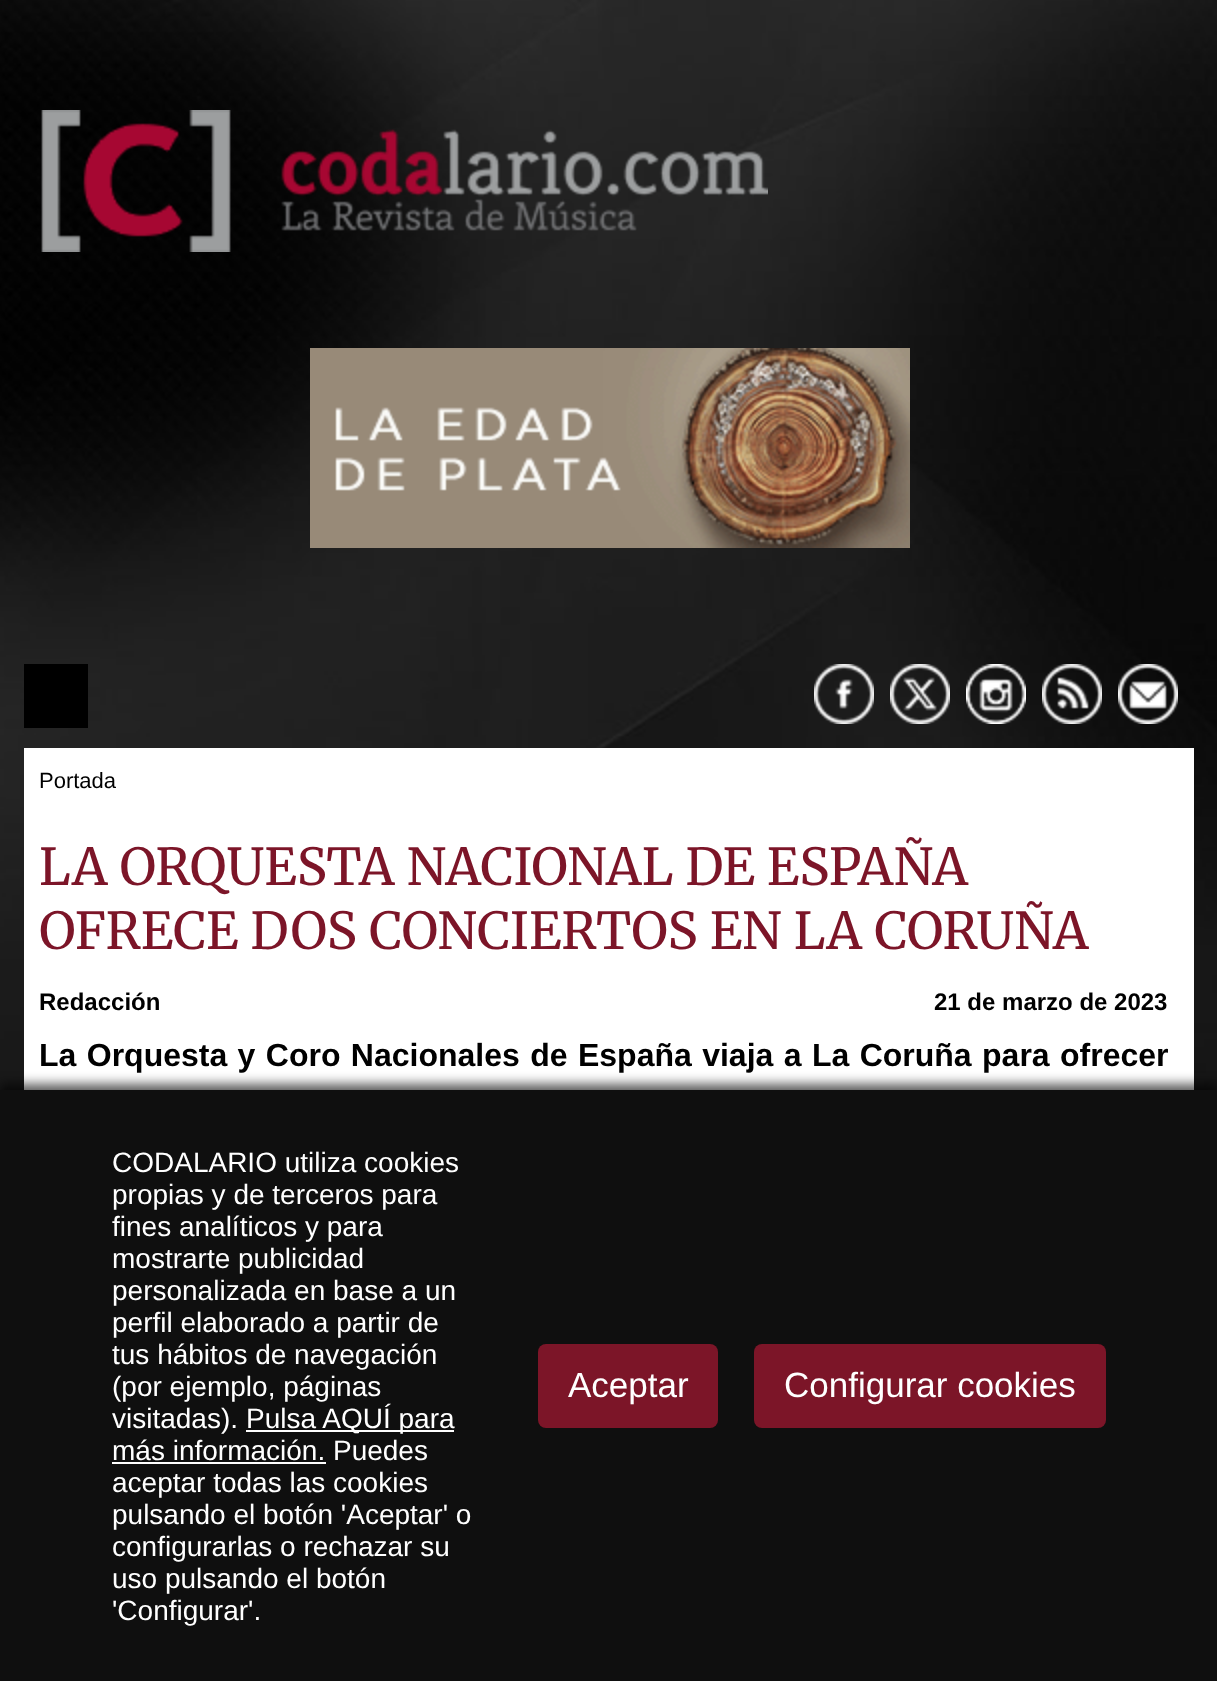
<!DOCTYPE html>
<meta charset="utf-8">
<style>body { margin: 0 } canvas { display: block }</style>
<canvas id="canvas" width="1217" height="1681"></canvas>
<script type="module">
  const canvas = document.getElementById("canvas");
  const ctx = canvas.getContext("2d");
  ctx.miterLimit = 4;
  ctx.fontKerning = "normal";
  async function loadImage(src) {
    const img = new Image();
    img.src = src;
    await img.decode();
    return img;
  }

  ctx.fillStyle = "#ffffff";
  ctx.fillRect(0, 0, 1217, 1681);
  ctx.drawImage(await loadImage("img1.png"), 0, 0, 1217, 1090);
  ctx.drawImage(await loadImage("img2.png"), 41, 110, 727, 142);
  ctx.drawImage(await loadImage("img3.png"), 310, 348, 600, 200);
  ctx.fillStyle = "#000000";
  ctx.fillRect(24, 664, 64, 64);
  ctx.drawImage(await loadImage("img4.png"), 814, 664, 60, 60);
  ctx.drawImage(await loadImage("img5.png"), 890, 664, 60, 60);
  ctx.drawImage(await loadImage("img6.png"), 966, 664, 60, 60);
  ctx.drawImage(await loadImage("img7.png"), 1042, 664, 60, 60);
  ctx.drawImage(await loadImage("img8.png"), 1118, 664, 60, 60);
  ctx.fillStyle = "#ffffff";
  ctx.fillRect(24, 748, 1170, 342);
  ctx.font = "22px Liberation Sans";
  ctx.fillStyle = "#000000";
  ctx.fillText("Portada", 39, 788);
  ctx.font = "300 50.8px Merriweather";
  ctx.fillStyle = "#7c1528";
  ctx.fillText("LA ORQUESTA NACIONAL DE ESPAÑA", 39, 885);
  ctx.fillText("OFRECE DOS CONCIERTOS EN LA CORUÑA", 39, 949);
  ctx.font = "bold 24px Liberation Sans";
  ctx.fillStyle = "#000000";
  ctx.fillText("Redacción", 39, 1010);
  ctx.fillText("21 de marzo de 2023", 934, 1010);
  ctx.wordSpacing = "1.5px";
  ctx.font = "bold 32px Liberation Sans";
  ctx.fillText("La Orquesta y Coro Nacionales de España viaja a La Coruña para ofrecer", 39, 1066);
  ctx.fillStyle = "rgba(0, 0, 0, 0.65)";
  ctx.filter = "blur(6px)";
  ctx.beginPath();
  ctx.rect(0, 1084, 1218, 592);
  ctx.fill();
  ctx.filter = "none";
  ctx.fillStyle = "#0f0f0f";
  ctx.fillRect(0, 1090, 1217, 591);
  ctx.wordSpacing = "0px";
  ctx.font = "28px Liberation Sans";
  ctx.fillStyle = "#ffffff";
  ctx.fillText("CODALARIO utiliza cookies", 112, 1172);
  ctx.fillText("propias y de terceros para", 112, 1204);
  ctx.fillText("fines analíticos y para", 112, 1236);
  ctx.fillText("mostrarte publicidad", 112, 1268);
  ctx.fillText("personalizada en base a un", 112, 1300);
  ctx.fillText("perfil elaborado a partir de", 112, 1332);
  ctx.fillText("tus hábitos de navegación", 112, 1364);
  ctx.fillText("(por ejemplo, páginas", 112, 1396);
  ctx.fillText("visitadas).", 112, 1428);
  ctx.fillRect(246, 1430, 208, 2);
  ctx.fillText("Pulsa AQUÍ para", 246, 1428);
  ctx.fillText("más información. Puedes", 112, 1460);
  ctx.fillRect(112, 1462, 214, 2);
  ctx.fillText("aceptar todas las cookies", 112, 1492);
  ctx.fillText("pulsando el botón 'Aceptar' o", 112, 1524);
  ctx.fillText("configurarlas o rechazar su", 112, 1556);
  ctx.fillText("uso pulsando el botón", 112, 1588);
  ctx.fillText("'Configurar'.", 112, 1620);
  ctx.fillStyle = "#7c1528";
  ctx.beginPath();
  ctx.roundRect(538, 1344, 180, 84, 8);
  ctx.fill();
  ctx.font = "35px Liberation Sans";
  ctx.fillStyle = "#ffffff";
  ctx.fillText("Aceptar", 568, 1397);
  ctx.fillStyle = "#7c1528";
  ctx.beginPath();
  ctx.roundRect(754, 1344, 352, 84, 8);
  ctx.fill();
  ctx.fillStyle = "#ffffff";
  ctx.fillText("Configurar cookies", 784, 1397);
</script>
